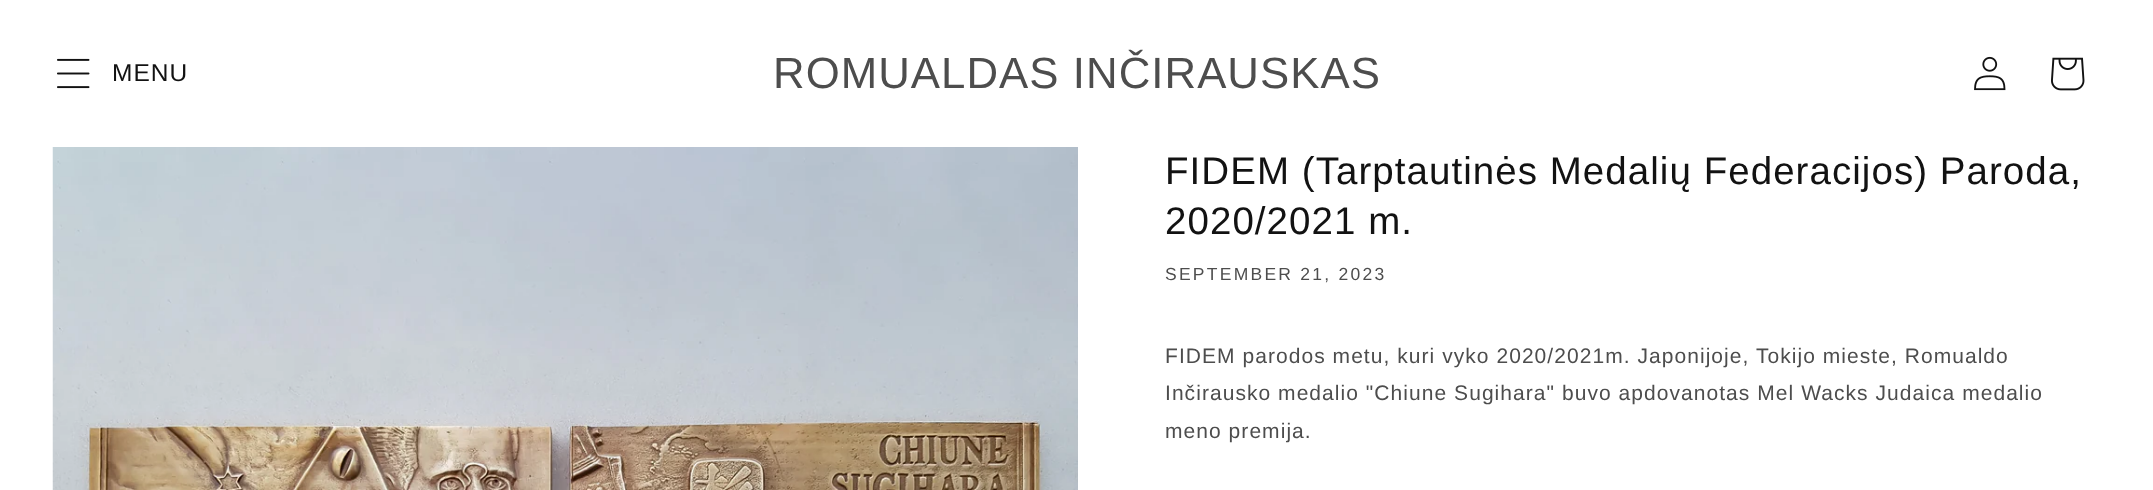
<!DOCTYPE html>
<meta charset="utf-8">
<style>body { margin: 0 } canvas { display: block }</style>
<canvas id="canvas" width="2153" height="490"></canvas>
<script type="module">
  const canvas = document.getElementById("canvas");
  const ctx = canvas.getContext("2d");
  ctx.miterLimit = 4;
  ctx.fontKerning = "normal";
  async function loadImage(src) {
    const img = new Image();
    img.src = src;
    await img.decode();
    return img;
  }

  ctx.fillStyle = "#ffffff";
  ctx.fillRect(0, 0, 2153, 490);
  ctx.drawImage(await loadImage("img1.png"), 57, 58, 33, 31);
  ctx.letterSpacing = "1.05px";
  ctx.font = "24.5px Liberation Sans";
  ctx.fillStyle = "#121212";
  ctx.fillText("MENU", 112, 81);
  ctx.font = "43.75px Liberation Sans";
  ctx.fillStyle = "#4d4d4d";
  ctx.fillText("ROMUALDAS INČIRAUSKAS", 773, 88);
  ctx.drawImage(await loadImage("img2.png"), 1974, 56, 32, 35);
  ctx.drawImage(await loadImage("img3.png"), 2051, 57, 34, 34);
  ctx.drawImage(await loadImage("img4.png"), 52, 147, 1026, 343);
  ctx.font = "38.5px Liberation Sans";
  ctx.fillStyle = "#121212";
  ctx.fillText("FIDEM (Tarptautinės Medalių Federacijos) Paroda,", 1165, 184);
  ctx.fillText("2020/2021 m.", 1165, 234);
  ctx.letterSpacing = "2.25px";
  ctx.font = "17.5px Liberation Sans";
  ctx.fillStyle = "#4d4d4d";
  ctx.fillText("SEPTEMBER 21, 2023", 1165, 280);
  ctx.letterSpacing = "1.05px";
  ctx.font = "21px Liberation Sans";
  ctx.fillText("FIDEM parodos metu, kuri vyko 2020/2021m. Japonijoje, Tokijo mieste, Romualdo", 1165, 363);
  ctx.fillText("Inčirausko medalio \"Chiune Sugihara\" buvo apdovanotas Mel Wacks Judaica medalio", 1165, 400);
  ctx.fillText("meno premija.", 1165, 438);
</script>
